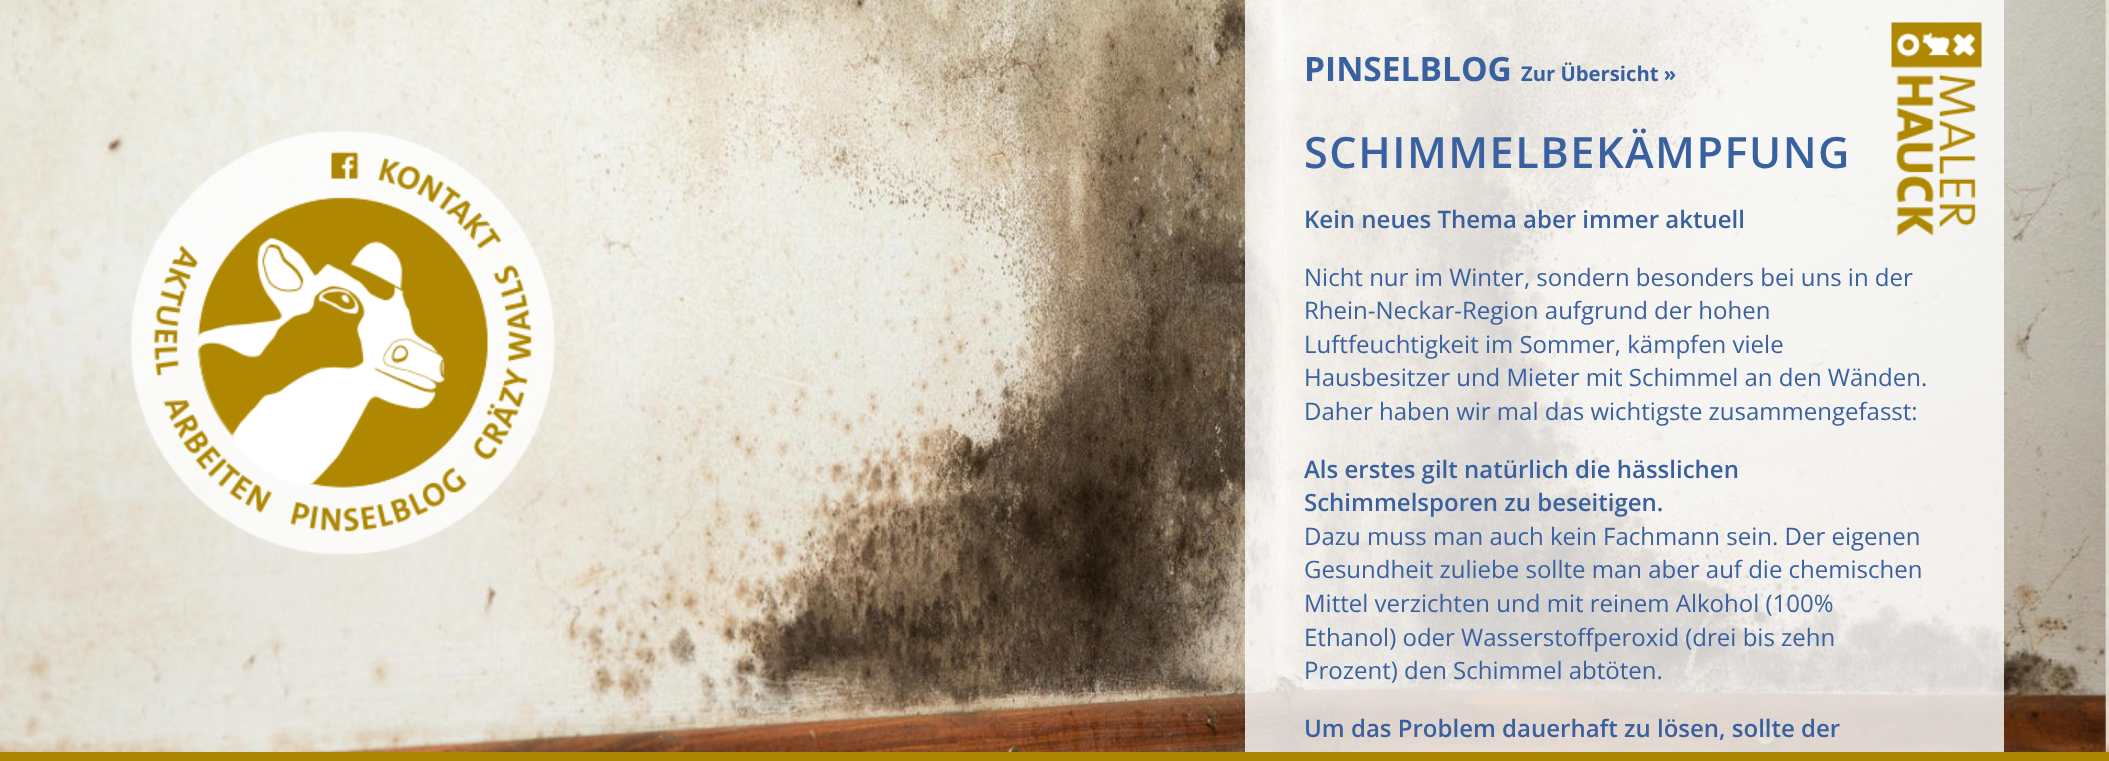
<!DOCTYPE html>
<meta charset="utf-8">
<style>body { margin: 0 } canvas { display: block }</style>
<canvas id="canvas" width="2109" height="761"></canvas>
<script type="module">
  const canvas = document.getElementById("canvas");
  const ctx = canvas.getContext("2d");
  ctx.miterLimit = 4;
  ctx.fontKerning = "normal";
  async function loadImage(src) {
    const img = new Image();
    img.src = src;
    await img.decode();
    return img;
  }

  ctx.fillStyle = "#ffffff";
  ctx.fillRect(0, 0, 2109, 761);
  ctx.drawImage(await loadImage("img1.png"), 0, 0, 2109, 752);
  ctx.drawImage(await loadImage("img2.png"), 130, 130, 425, 425);
  ctx.fillStyle = "rgba(255, 255, 255, 0.8)";
  ctx.fillRect(1245, 0, 759, 752);
  ctx.font = "bold 33.5px Open Sans";
  ctx.fillStyle = "#3a619f";
  ctx.fillText("PINSELBLOG", 1304, 81);
  ctx.font = "bold 20.25px Open Sans";
  ctx.fillText("Zur Übersicht »", 1521, 81);
  ctx.letterSpacing = "1.5px";
  ctx.font = "600 43.25px Open Sans";
  ctx.fillText("SCHIMMELBEKÄMPFUNG", 1304, 168);
  ctx.letterSpacing = "0px";
  ctx.font = "600 24px Open Sans";
  ctx.fillText("Kein neues Thema aber immer aktuell", 1304, 228);
  ctx.font = "24px Open Sans";
  ctx.fillText("Nicht nur im Winter, sondern besonders bei uns in der", 1304, 286);
  ctx.fillText("Rhein-Neckar-Region aufgrund der hohen", 1304, 319);
  ctx.fillText("Luftfeuchtigkeit im Sommer, kämpfen viele", 1304, 353);
  ctx.fillText("Hausbesitzer und Mieter mit Schimmel an den Wänden.", 1304, 386);
  ctx.fillText("Daher haben wir mal das wichtigste zusammengefasst:", 1304, 420);
  ctx.font = "600 24px Open Sans";
  ctx.fillText("Als erstes gilt natürlich die hässlichen", 1304, 478);
  ctx.fillText("Schimmelsporen zu beseitigen.", 1304, 511);
  ctx.font = "24px Open Sans";
  ctx.fillText("Dazu muss man auch kein Fachmann sein. Der eigenen", 1304, 545);
  ctx.fillText("Gesundheit zuliebe sollte man aber auf die chemischen", 1304, 578);
  ctx.fillText("Mittel verzichten und mit reinem Alkohol (100%", 1304, 612);
  ctx.fillText("Ethanol) oder Wasserstoffperoxid (drei bis zehn", 1304, 646);
  ctx.fillText("Prozent) den Schimmel abtöten.", 1304, 679);
  ctx.font = "600 24px Open Sans";
  ctx.fillText("Um das Problem dauerhaft zu lösen, sollte der", 1304, 737);
  ctx.drawImage(await loadImage("img3.png"), 1891, 22, 91, 214);
  ctx.fillStyle = "#ac8600";
  ctx.fillRect(0, 752, 2109, 9);
</script>
